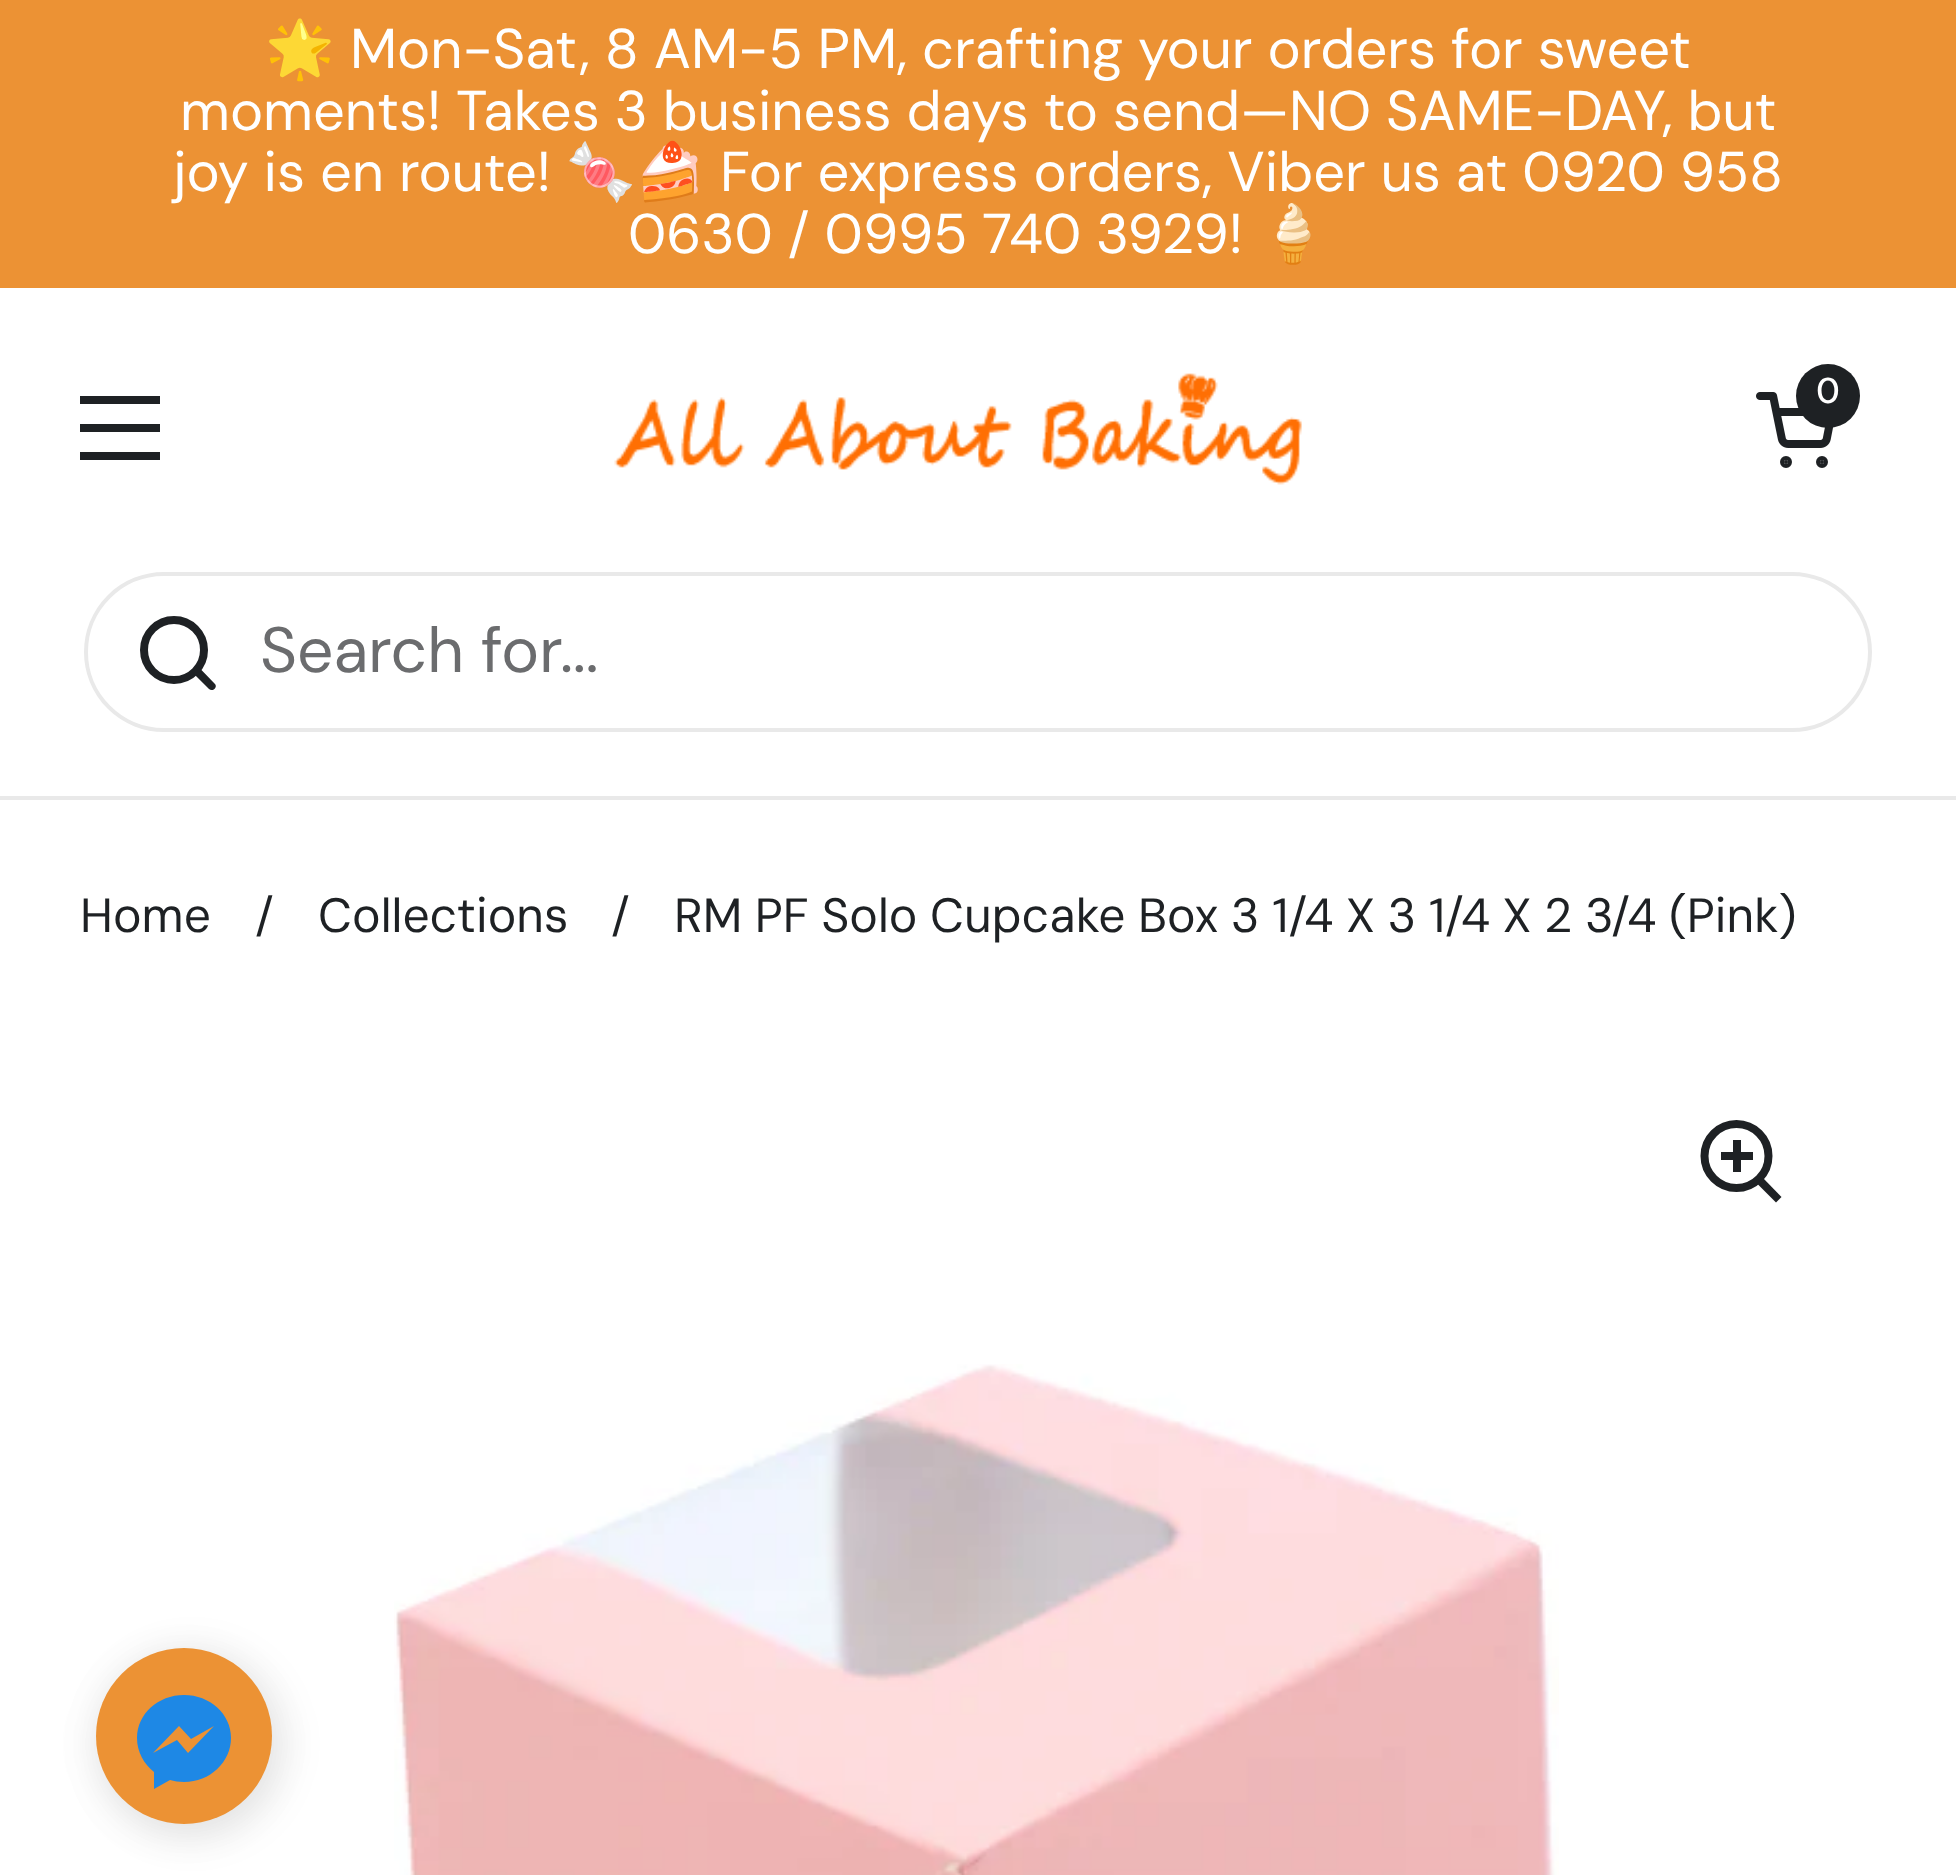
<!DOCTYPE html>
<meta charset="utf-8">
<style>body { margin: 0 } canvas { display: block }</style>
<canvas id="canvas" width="1956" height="1875"></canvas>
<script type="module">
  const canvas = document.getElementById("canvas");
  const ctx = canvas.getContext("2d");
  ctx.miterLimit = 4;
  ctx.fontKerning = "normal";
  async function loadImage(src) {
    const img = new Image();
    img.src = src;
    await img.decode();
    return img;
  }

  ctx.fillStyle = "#ffffff";
  ctx.fillRect(0, 0, 1956, 1875);
  ctx.fillStyle = "#ec9234";
  ctx.fillRect(0, 0, 1956, 288);
  ctx.font = "56px Noto Color Emoji";
  ctx.fillStyle = "#ffffff";
  ctx.fillText("🌟", 265, 68);
  ctx.font = "56px DM Sans";
  ctx.fillText("Mon-Sat, 8 AM-5 PM, crafting your orders for sweet", 350, 68);
  ctx.fillText("moments! Takes 3 business days to send—NO SAME-DAY, but", 180, 130);
  ctx.fillText("joy is en route!", 173, 191);
  ctx.font = "56px Noto Color Emoji";
  ctx.fillText("🍬🍰", 566, 191);
  ctx.font = "56px DM Sans";
  ctx.fillText("For express orders, Viber us at 0920 958", 720, 191);
  ctx.fillText("0630 / 0995 740 3929!", 628, 253);
  ctx.font = "56px Noto Color Emoji";
  ctx.fillText("🍦", 1258, 253);
  ctx.drawImage(await loadImage("img1.png"), 614, 373, 688, 112);
  ctx.drawImage(await loadImage("img2.png"), 1756, 392, 78, 76);
  ctx.fillStyle = "#1e2124";
  ctx.beginPath();
  ctx.arc(1828, 396, 32, 0, Math.PI * 2);
  ctx.fill();
  ctx.font = "500 36px DM Sans";
  ctx.fillStyle = "#ffffff";
  ctx.fillText("0", 1816, 403);
  ctx.fillStyle = "#1e2124";
  ctx.fillRect(80, 396, 80, 8);
  ctx.fillRect(80, 424, 80, 8);
  ctx.fillRect(80, 452, 80, 8);
  ctx.fillStyle = "#e9e9e9";
  ctx.fillRect(0, 796, 1956, 4);
  ctx.beginPath();
  ctx.roundRect(86, 574, 1784, 156, 78);
  ctx.strokeStyle = "#e9e9e9";
  ctx.lineWidth = 4;
  ctx.stroke();
  ctx.beginPath();
  ctx.arc(174, 650, 30, 0, Math.PI * 2);
  ctx.strokeStyle = "#1e2124";
  ctx.lineWidth = 8;
  ctx.stroke();
  ctx.fillStyle = "#1e2124";
  ctx.beginPath();
  ctx.moveTo(200.5, 669);
  ctx.lineTo(197.5, 666.5);
  ctx.lineTo(192, 672);
  ctx.lineTo(195, 675);
  ctx.closePath();
  ctx.moveTo(209, 689);
  ctx.bezierCurveTo(212.5, 692.5, 218.5, 687, 214.5, 683.5);
  ctx.closePath();
  ctx.moveTo(195, 675);
  ctx.lineTo(209, 689);
  ctx.lineTo(214.5, 683.5);
  ctx.lineTo(200.5, 669);
  ctx.closePath();
  ctx.fill();
  ctx.font = "64px 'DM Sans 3'";
  ctx.fillStyle = "#6b6c6e";
  ctx.fillText("Search for...", 260, 672);
  ctx.font = "48px 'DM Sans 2'";
  ctx.fillStyle = "#1e2124";
  ctx.fillText("Home", 80, 932);
  ctx.fillText("/", 255, 932);
  ctx.fillText("Collections", 318, 932);
  ctx.fillText("/", 611, 932);
  ctx.wordSpacing = "-0.4px";
  ctx.fillText("RM PF Solo Cupcake Box 3 1/4 X 3 1/4 X 2 3/4 (Pink)", 674, 932);
  ctx.beginPath();
  ctx.arc(1736.5, 1156, 32, 0, Math.PI * 2);
  ctx.stroke();
  ctx.fillRect(1733, 1140, 8, 32);
  ctx.fillRect(1721, 1152, 32, 8);
  ctx.beginPath();
  ctx.moveTo(1757, 1183.5);
  ctx.lineTo(1763, 1178);
  ctx.lineTo(1781.5, 1197);
  ctx.lineTo(1776, 1202.5);
  ctx.closePath();
  ctx.fill();
  ctx.drawImage(await loadImage("img3.png"), 394, 1364, 1165, 511);
  ctx.fillStyle = "rgba(0, 0, 0, 0.07)";
  ctx.filter = "blur(18px)";
  ctx.beginPath();
  ctx.roundRect(96, 1648, 192, 192, 96);
  ctx.fill();
  ctx.filter = "none";
  ctx.fillStyle = "rgba(0, 0, 0, 0.05)";
  ctx.filter = "blur(20px)";
  ctx.beginPath();
  ctx.roundRect(96, 1656, 176, 176, 88);
  ctx.fill();
  ctx.filter = "none";
  ctx.fillStyle = "#ec9234";
  ctx.beginPath();
  ctx.arc(184, 1736, 88, 0, Math.PI * 2);
  ctx.fill();
  ctx.fillStyle = "#1e88e5";
  ctx.beginPath();
  ctx.moveTo(137, 1738);
  ctx.bezierCurveTo(137, 1714, 158, 1695, 184, 1695);
  ctx.bezierCurveTo(210, 1695, 231, 1714, 231, 1738);
  ctx.bezierCurveTo(231, 1762, 210, 1782, 184, 1782);
  ctx.bezierCurveTo(179, 1782, 174, 1781, 170, 1780);
  ctx.lineTo(154, 1789);
  ctx.lineTo(154, 1772);
  ctx.bezierCurveTo(144, 1764, 137, 1752, 137, 1738);
  ctx.closePath();
  ctx.moveTo(177, 1740);
  ctx.lineTo(188, 1753);
  ctx.lineTo(214, 1726);
  ctx.lineTo(191, 1739);
  ctx.lineTo(179, 1726);
  ctx.lineTo(153, 1753);
  ctx.closePath();
  ctx.fill("evenodd");
</script>
